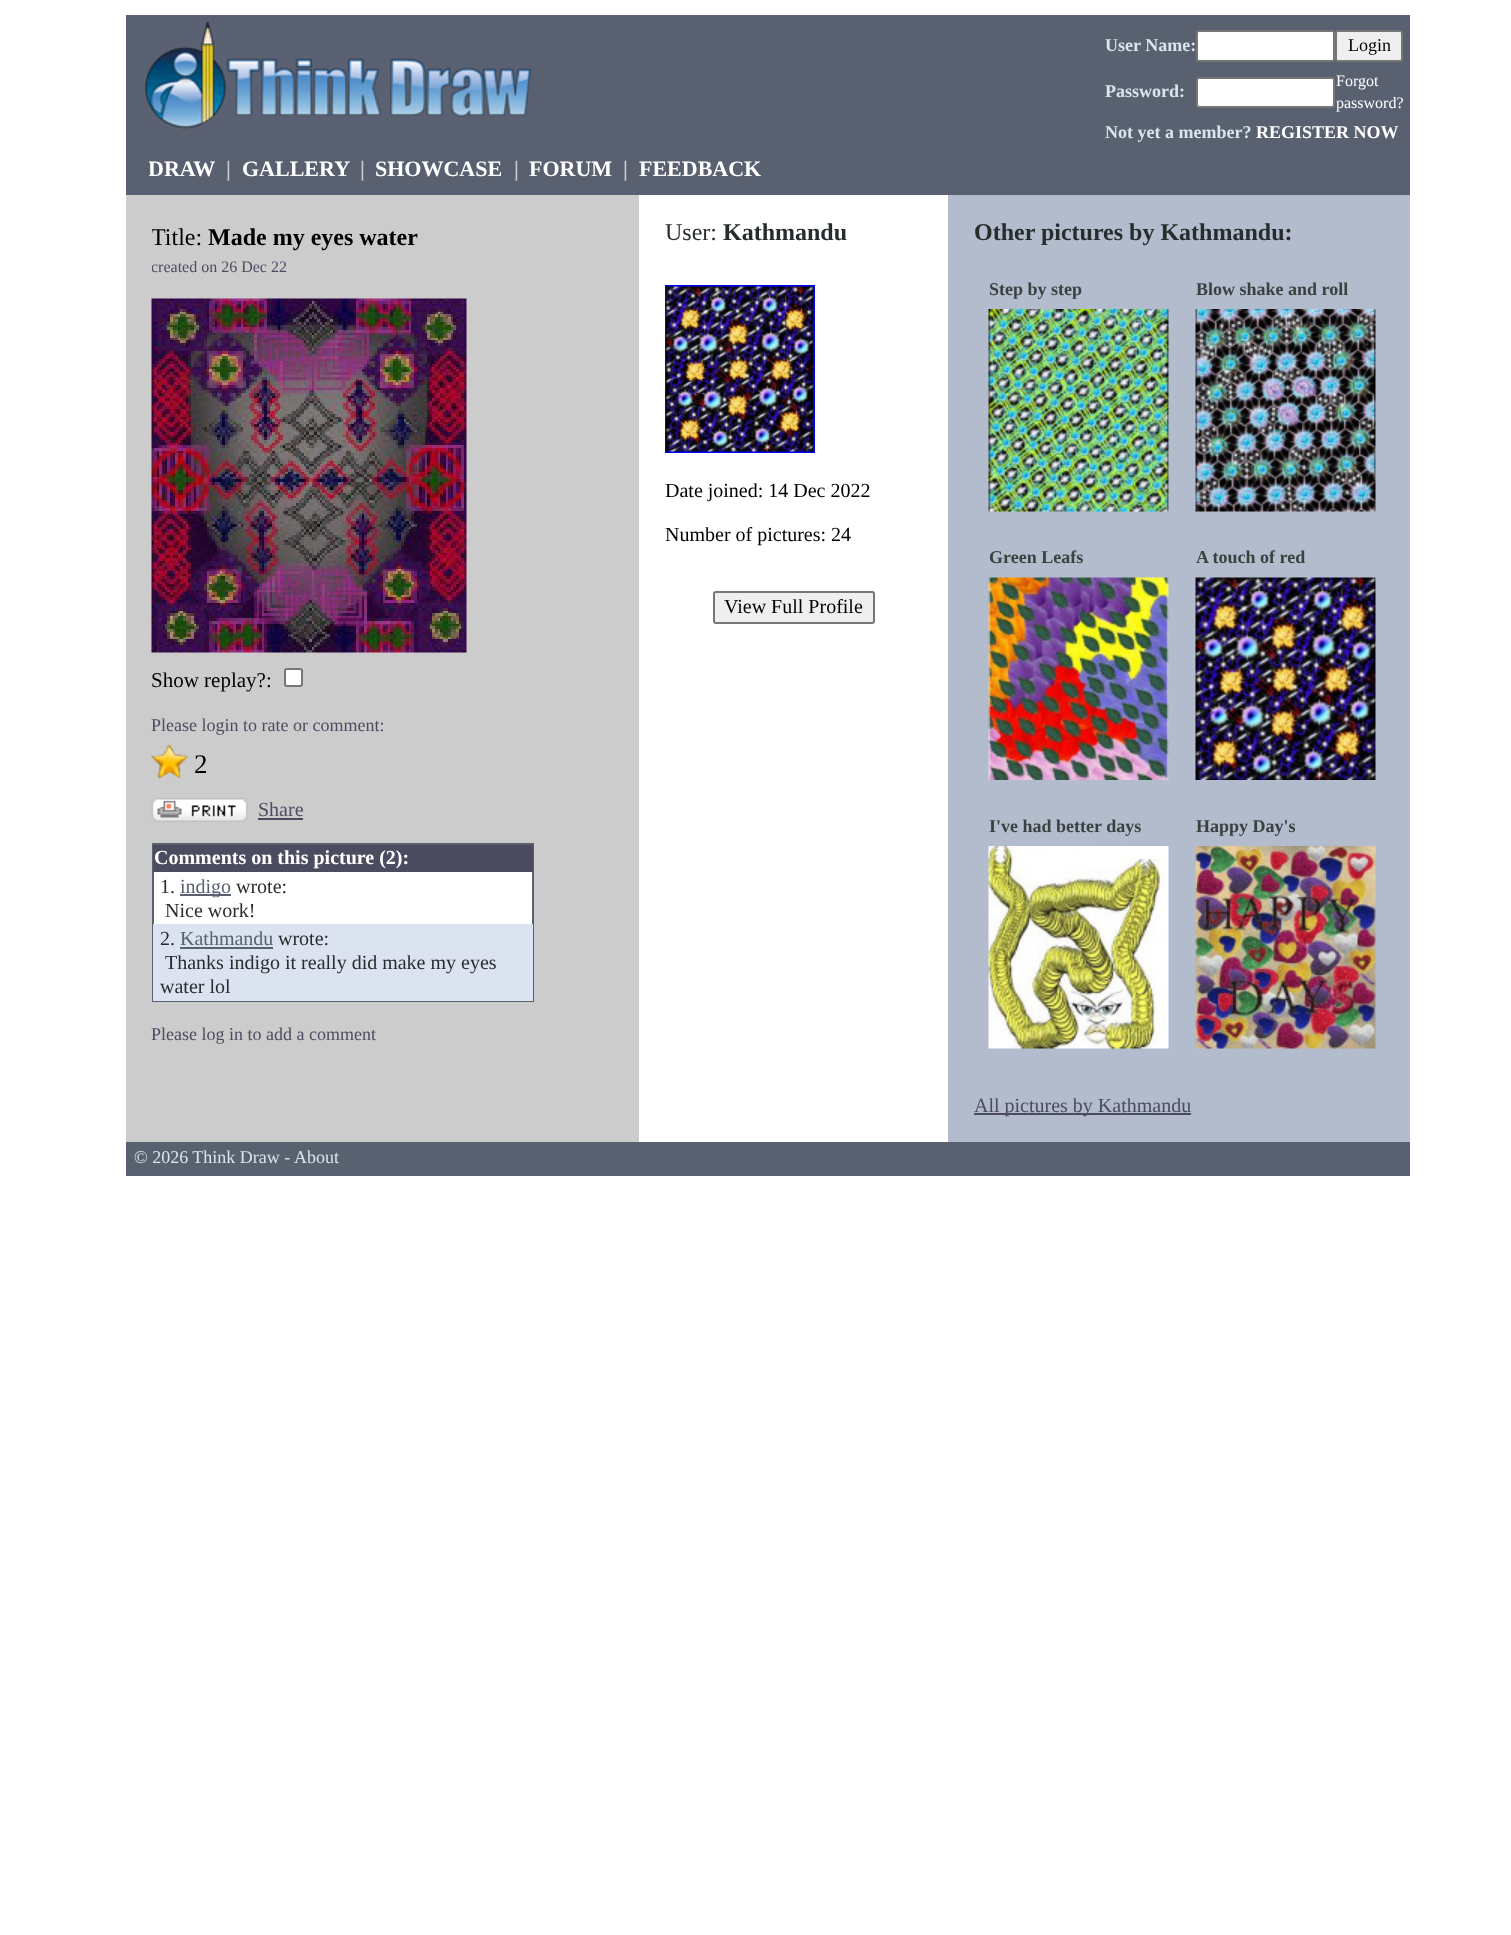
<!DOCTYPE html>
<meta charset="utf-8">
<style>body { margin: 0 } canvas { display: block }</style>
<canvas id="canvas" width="1511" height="1935"></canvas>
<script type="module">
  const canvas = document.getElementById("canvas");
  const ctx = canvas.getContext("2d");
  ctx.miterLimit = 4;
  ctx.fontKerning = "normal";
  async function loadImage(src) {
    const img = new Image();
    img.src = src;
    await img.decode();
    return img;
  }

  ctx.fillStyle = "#ffffff";
  ctx.fillRect(0, 0, 1511, 1935);
  ctx.fillStyle = "#596171";
  ctx.fillRect(126, 15, 1284, 180);
  ctx.drawImage(await loadImage("img1.png"), 144, 21, 388, 108);
  ctx.font = "bold 18px Liberation Serif";
  ctx.fillStyle = "#dbe3f0";
  ctx.fillText("User Name:", 1105, 51);
  ctx.fillStyle = "#ffffff";
  ctx.beginPath();
  ctx.roundRect(1197, 31, 137, 30, 2);
  ctx.fill();
  ctx.strokeStyle = "#767676";
  ctx.lineWidth = 2;
  ctx.stroke();
  ctx.fillStyle = "#efefef";
  ctx.beginPath();
  ctx.roundRect(1336, 31, 66, 30, 2);
  ctx.fill();
  ctx.stroke();
  ctx.font = "18px Liberation Serif";
  ctx.fillStyle = "#000000";
  ctx.fillText("Login", 1348, 51);
  ctx.font = "bold 18px Liberation Serif";
  ctx.fillStyle = "#dbe3f0";
  ctx.fillText("Password:", 1105, 97);
  ctx.fillStyle = "#ffffff";
  ctx.beginPath();
  ctx.roundRect(1197, 78, 137, 29, 2);
  ctx.fill();
  ctx.stroke();
  ctx.font = "16px Liberation Serif";
  ctx.fillText("Forgot", 1336, 86);
  ctx.fillText("password?", 1336, 108);
  ctx.font = "bold 18px Liberation Serif";
  ctx.fillStyle = "#dbe3f0";
  ctx.fillText("Not yet a member?", 1105, 138);
  ctx.fillStyle = "#ffffff";
  ctx.fillText("REGISTER NOW", 1256, 138);
  ctx.save();
  ctx.beginPath();
  ctx.rect(149, 156, 1221, 30);
  ctx.clip();
  ctx.font = "bold 22px Liberation Serif";
  ctx.fillText("DRAW", 148, 176);
  ctx.restore();
  ctx.font = "bold 22px Liberation Serif";
  ctx.fillStyle = "#cccccc";
  ctx.fillText("|", 226, 176);
  ctx.fillStyle = "#ffffff";
  ctx.fillText("GALLERY", 242, 176);
  ctx.fillStyle = "#cccccc";
  ctx.fillText("|", 360, 176);
  ctx.fillStyle = "#ffffff";
  ctx.fillText("SHOWCASE", 375, 176);
  ctx.fillStyle = "#cccccc";
  ctx.fillText("|", 514, 176);
  ctx.fillStyle = "#ffffff";
  ctx.fillText("FORUM", 529, 176);
  ctx.fillStyle = "#cccccc";
  ctx.fillText("|", 623, 176);
  ctx.fillStyle = "#ffffff";
  ctx.fillText("FEEDBACK", 639, 176);
  ctx.fillStyle = "#b3bccc";
  ctx.fillRect(948, 195, 462, 947);
  ctx.fillStyle = "#cccccc";
  ctx.fillRect(126, 195, 513, 947);
  ctx.save();
  ctx.beginPath();
  ctx.rect(152, 224, 367, 54);
  ctx.clip();
  ctx.font = "24px Liberation Serif";
  ctx.fillStyle = "#000000";
  ctx.fillText("Title:", 151, 245);
  ctx.restore();
  ctx.font = "bold 24px Liberation Serif";
  ctx.fillStyle = "#000000";
  ctx.fillText("Made my eyes water", 208, 245);
  ctx.save();
  ctx.beginPath();
  ctx.rect(152, 224, 367, 54);
  ctx.clip();
  ctx.font = "16px Liberation Serif";
  ctx.fillStyle = "#4c4c61";
  ctx.fillText("created on 26 Dec 22", 151, 272);
  ctx.restore();
  ctx.drawImage(await loadImage("img2.png"), 151, 298, 316, 355);
  ctx.font = "21px Liberation Serif";
  ctx.fillText("Show replay?:", 151, 687);
  ctx.fillStyle = "#ffffff";
  ctx.beginPath();
  ctx.roundRect(285, 669, 17, 17, 2);
  ctx.fill();
  ctx.stroke();
  ctx.font = "18px Liberation Serif";
  ctx.fillStyle = "#4c4c61";
  ctx.fillText("Please login to rate or comment:", 151, 731);
  ctx.drawImage(await loadImage("img3.png"), 151, 744, 37, 35);
  ctx.font = "27px Liberation Serif";
  ctx.fillStyle = "#000000";
  ctx.fillText("2", 194, 773);
  ctx.drawImage(await loadImage("img4.png"), 151, 798, 97, 24);
  ctx.font = "20px Liberation Serif";
  ctx.fillStyle = "#4c4c61";
  ctx.fillText("Share", 258, 816);
  ctx.fillRect(258, 818, 45, 2);
  ctx.fillStyle = "#ffffff";
  ctx.fillRect(154, 872, 378, 52);
  ctx.strokeStyle = "#596171";
  ctx.strokeRect(153, 844, 380, 157);
  ctx.fillStyle = "#4c4c61";
  ctx.fillRect(153, 845, 380, 27);
  ctx.font = "bold 20px Liberation Serif";
  ctx.fillStyle = "#ffffff";
  ctx.fillText("Comments on this picture (2):", 154, 864);
  ctx.font = "20px Liberation Serif";
  ctx.fillStyle = "#272d2e";
  ctx.fillText("1.", 160, 893);
  ctx.fillStyle = "#596171";
  ctx.fillRect(180, 894, 51, 2);
  ctx.fillText("indigo", 180, 893);
  ctx.fillStyle = "#272d2e";
  ctx.fillText("wrote:", 236, 893);
  ctx.fillText("Nice work!", 165, 917);
  ctx.fillStyle = "#dbe3f0";
  ctx.fillRect(153, 924, 380, 77);
  ctx.fillStyle = "#272d2e";
  ctx.fillText("2.", 160, 945);
  ctx.fillStyle = "#596171";
  ctx.fillText("Kathmandu", 180, 945);
  ctx.fillRect(180, 947, 93, 2);
  ctx.fillStyle = "#272d2e";
  ctx.fillText("wrote:", 278, 945);
  ctx.fillText("Thanks indigo it really did make my eyes", 165, 969);
  ctx.fillText("water lol", 160, 993);
  ctx.font = "18px Liberation Serif";
  ctx.fillStyle = "#4c4c61";
  ctx.fillText("Please log in to add a comment", 151, 1040);
  ctx.font = "24px Liberation Serif";
  ctx.fillStyle = "#272d2e";
  ctx.fillText("User:", 665, 240);
  ctx.font = "bold 24px Liberation Serif";
  ctx.fillText("Kathmandu", 723, 240);
  ctx.strokeStyle = "#0000ee";
  ctx.strokeRect(666, 286, 148, 166);
  ctx.drawImage(await loadImage("img5.png"), 666, 286, 147, 166);
  ctx.font = "20px Liberation Serif";
  ctx.fillStyle = "#000000";
  ctx.fillText("Date joined: 14 Dec 2022", 665, 497);
  ctx.fillText("Number of pictures: 24", 665, 541);
  ctx.fillStyle = "#efefef";
  ctx.beginPath();
  ctx.roundRect(714, 592, 160, 31, 2);
  ctx.fill();
  ctx.strokeStyle = "#767676";
  ctx.stroke();
  ctx.fillStyle = "#000000";
  ctx.fillText("View Full Profile", 724, 613);
  ctx.font = "bold 24px Liberation Serif";
  ctx.fillStyle = "#272d2e";
  ctx.fillText("Other pictures by Kathmandu:", 974, 240);
  ctx.font = "bold 18px Liberation Serif";
  ctx.fillStyle = "#3a4141";
  ctx.fillText("Step by step", 989, 295);
  ctx.drawImage(await loadImage("img6.png"), 988, 309, 181, 203);
  ctx.fillText("Blow shake and roll", 1196, 295);
  ctx.drawImage(await loadImage("img7.png"), 1195, 309, 181, 203);
  ctx.fillText("Green Leafs", 989, 563);
  ctx.drawImage(await loadImage("img8.png"), 988, 577, 181, 203);
  ctx.fillText("A touch of red", 1196, 563);
  ctx.drawImage(await loadImage("img9.png"), 1195, 577, 181, 203);
  ctx.fillText("I've had better days", 989, 832);
  ctx.drawImage(await loadImage("img10.png"), 988, 846, 181, 203);
  ctx.fillText("Happy Day's", 1196, 832);
  ctx.drawImage(await loadImage("img11.png"), 1195, 846, 181, 203);
  ctx.fillStyle = "#4c4c61";
  ctx.fillRect(974, 1113, 217, 2);
  ctx.font = "20px Liberation Serif";
  ctx.fillText("All pictures by Kathmandu", 974, 1112);
  ctx.fillStyle = "#596171";
  ctx.fillRect(126, 1142, 1284, 34);
  ctx.font = "18px Liberation Serif";
  ctx.fillStyle = "#dbe3f0";
  ctx.fillText("© 2026 Think Draw -", 134, 1163);
  ctx.fillText("About", 294, 1163);
</script>
